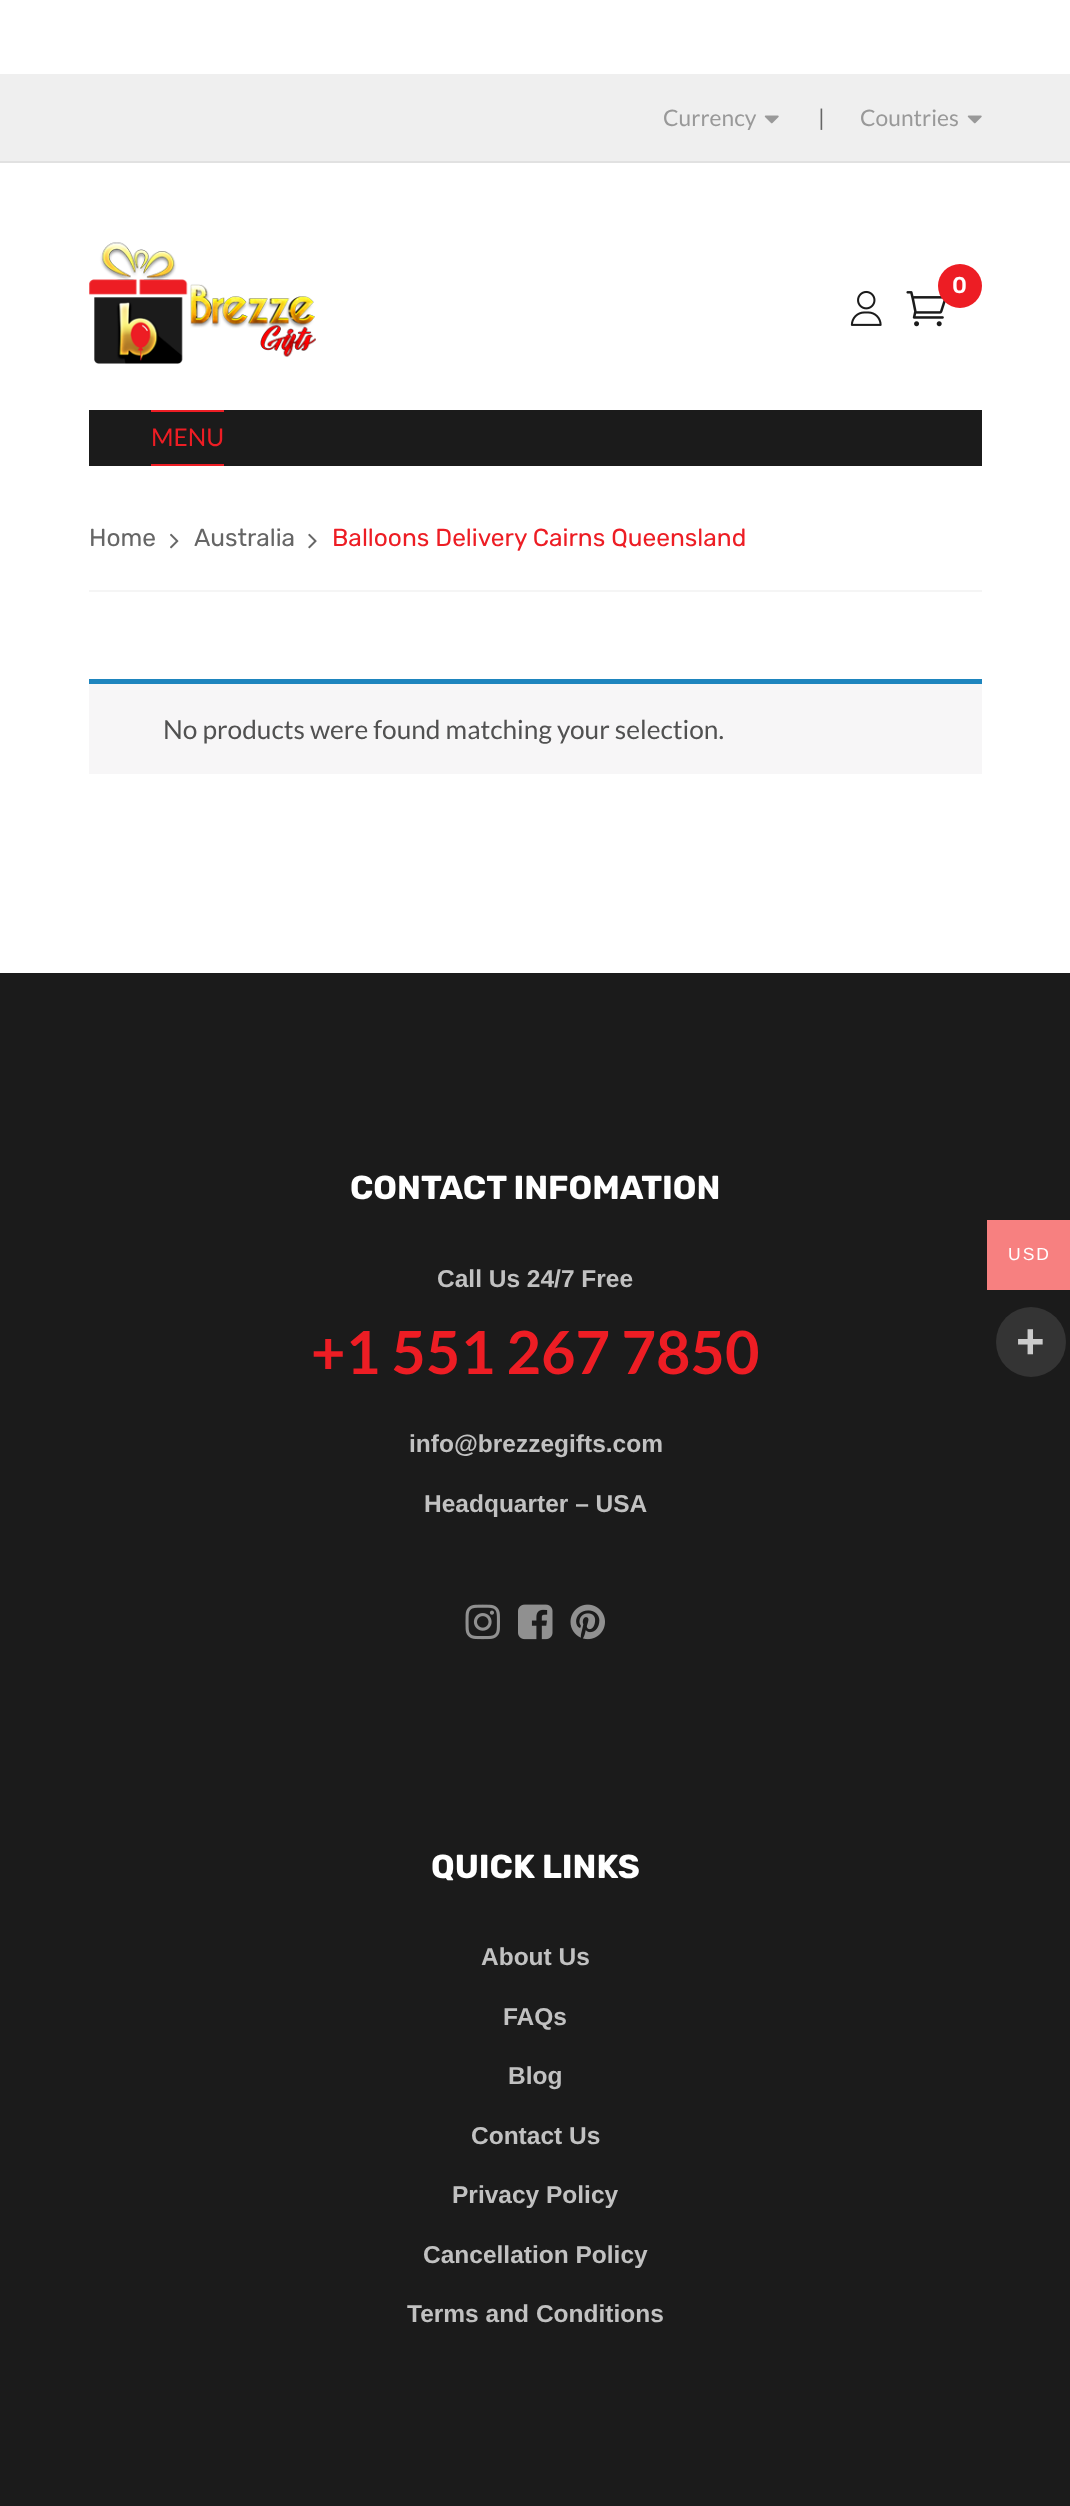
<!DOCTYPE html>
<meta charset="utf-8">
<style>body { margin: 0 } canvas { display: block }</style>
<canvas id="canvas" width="1070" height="2506"></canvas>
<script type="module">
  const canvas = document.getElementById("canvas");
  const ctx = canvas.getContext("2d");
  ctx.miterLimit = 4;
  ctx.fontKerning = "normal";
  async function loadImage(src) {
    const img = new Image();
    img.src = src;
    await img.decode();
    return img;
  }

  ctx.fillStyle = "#ffffff";
  ctx.fillRect(0, 0, 1070, 2506);
  ctx.fillStyle = "#efefef";
  ctx.fillRect(0, 74, 1070, 87);
  ctx.fillStyle = "#e1e1e1";
  ctx.fillRect(0, 161, 1070, 2);
  ctx.font = "22.75px Lato";
  ctx.fillStyle = "#999999";
  ctx.fillText("Currency", 663, 126);
  ctx.drawImage(await loadImage("img1.png"), 764, 115, 15, 9);
  ctx.fillStyle = "#666666";
  ctx.fillText("|", 818, 126);
  ctx.fillStyle = "#999999";
  ctx.fillText("Countries", 860, 126);
  ctx.drawImage(await loadImage("img1.png"), 967, 115, 15, 9);
  ctx.drawImage(await loadImage("img2.png"), 89, 242, 227, 122);
  ctx.drawImage(await loadImage("img3.png"), 906, 291, 40, 36);
  ctx.fillStyle = "#ed1d24";
  ctx.beginPath();
  ctx.arc(960, 286, 22, 0, Math.PI * 2);
  ctx.fill();
  ctx.font = "500 22.75px Rubik";
  ctx.fillStyle = "#ffffff";
  ctx.fillText("0", 952, 293);
  ctx.drawImage(await loadImage("img4.png"), 850, 290, 32, 36);
  ctx.fillStyle = "#1b1b1b";
  ctx.fillRect(89, 410, 893, 56);
  ctx.fillStyle = "#ed1d24";
  ctx.fillRect(151, 410, 73, 2);
  ctx.fillRect(151, 464, 73, 2);
  ctx.font = "24.5px Lato";
  ctx.fillText("MENU", 151, 446);
  ctx.fillStyle = "#f5f5f5";
  ctx.fillRect(89, 590, 893, 2);
  ctx.font = "24.5px Rubik";
  ctx.fillStyle = "#666666";
  ctx.fillText("Home", 89, 546);
  ctx.drawImage(await loadImage("img5.png"), 170, 533, 9, 16);
  ctx.fillText("Australia", 194, 546);
  ctx.drawImage(await loadImage("img6.png"), 308, 533, 9, 16);
  ctx.fillStyle = "#ed1d24";
  ctx.fillText("Balloons Delivery Cairns Queensland", 332, 546);
  ctx.fillStyle = "#f7f6f7";
  ctx.fillRect(89, 684, 893, 90);
  ctx.fillStyle = "#1e85be";
  ctx.fillRect(89, 679, 893, 5);
  ctx.font = "26.25px Lato";
  ctx.fillStyle = "#515151";
  ctx.fillText("No products were found matching your selection.", 163, 739);
  ctx.fillStyle = "#1b1b1b";
  ctx.fillRect(0, 973, 1070, 1533);
  ctx.font = "bold 33.25px Rubik";
  ctx.fillStyle = "#ffffff";
  ctx.fillText("CONTACT INFOMATION", 350, 1199);
  ctx.font = "bold 24.5px Liberation Sans";
  ctx.fillStyle = "#c1c1c1";
  ctx.fillText("Call Us 24/7 Free", 437, 1287);
  ctx.font = "bold 59.5px Lato";
  ctx.fillStyle = "#ed1d24";
  ctx.fillText("+1 551 267 7850", 311, 1374);
  ctx.font = "bold 24.5px Liberation Sans";
  ctx.fillStyle = "#c1c1c1";
  ctx.fillText("info@brezzegifts.com", 409, 1452);
  ctx.fillText("Headquarter – USA", 424, 1512);
  ctx.drawImage(await loadImage("img7.png"), 465, 1604, 35, 36);
  ctx.drawImage(await loadImage("img8.png"), 518, 1604, 35, 36);
  ctx.drawImage(await loadImage("img9.png"), 570, 1604, 35, 36);
  ctx.font = "bold 33.25px Rubik";
  ctx.fillStyle = "#ffffff";
  ctx.fillText("QUICK LINKS", 431, 1878);
  ctx.font = "bold 24.5px Liberation Sans";
  ctx.fillStyle = "#c1c1c1";
  ctx.fillText("About Us", 481, 1965);
  ctx.fillText("FAQs", 503, 2025);
  ctx.fillText("Blog", 508, 2084);
  ctx.fillText("Contact Us", 471, 2144);
  ctx.fillText("Privacy Policy", 452, 2203);
  ctx.fillText("Cancellation Policy", 423, 2263);
  ctx.fillText("Terms and Conditions", 407, 2322);
  ctx.fillStyle = "#f78080";
  ctx.fillRect(987, 1220, 83, 70);
  ctx.letterSpacing = "2px";
  ctx.font = "17.5px Liberation Sans";
  ctx.fillStyle = "#ffffff";
  ctx.fillText("USD", 1008, 1260);
  ctx.fillStyle = "#343434";
  ctx.beginPath();
  ctx.arc(1031, 1342, 35, 0, Math.PI * 2);
  ctx.fill();
  ctx.letterSpacing = "0px";
  ctx.font = "bold 49px Liberation Sans";
  ctx.fillStyle = "#cccccc";
  ctx.fillText("+", 1016, 1358);
</script>
